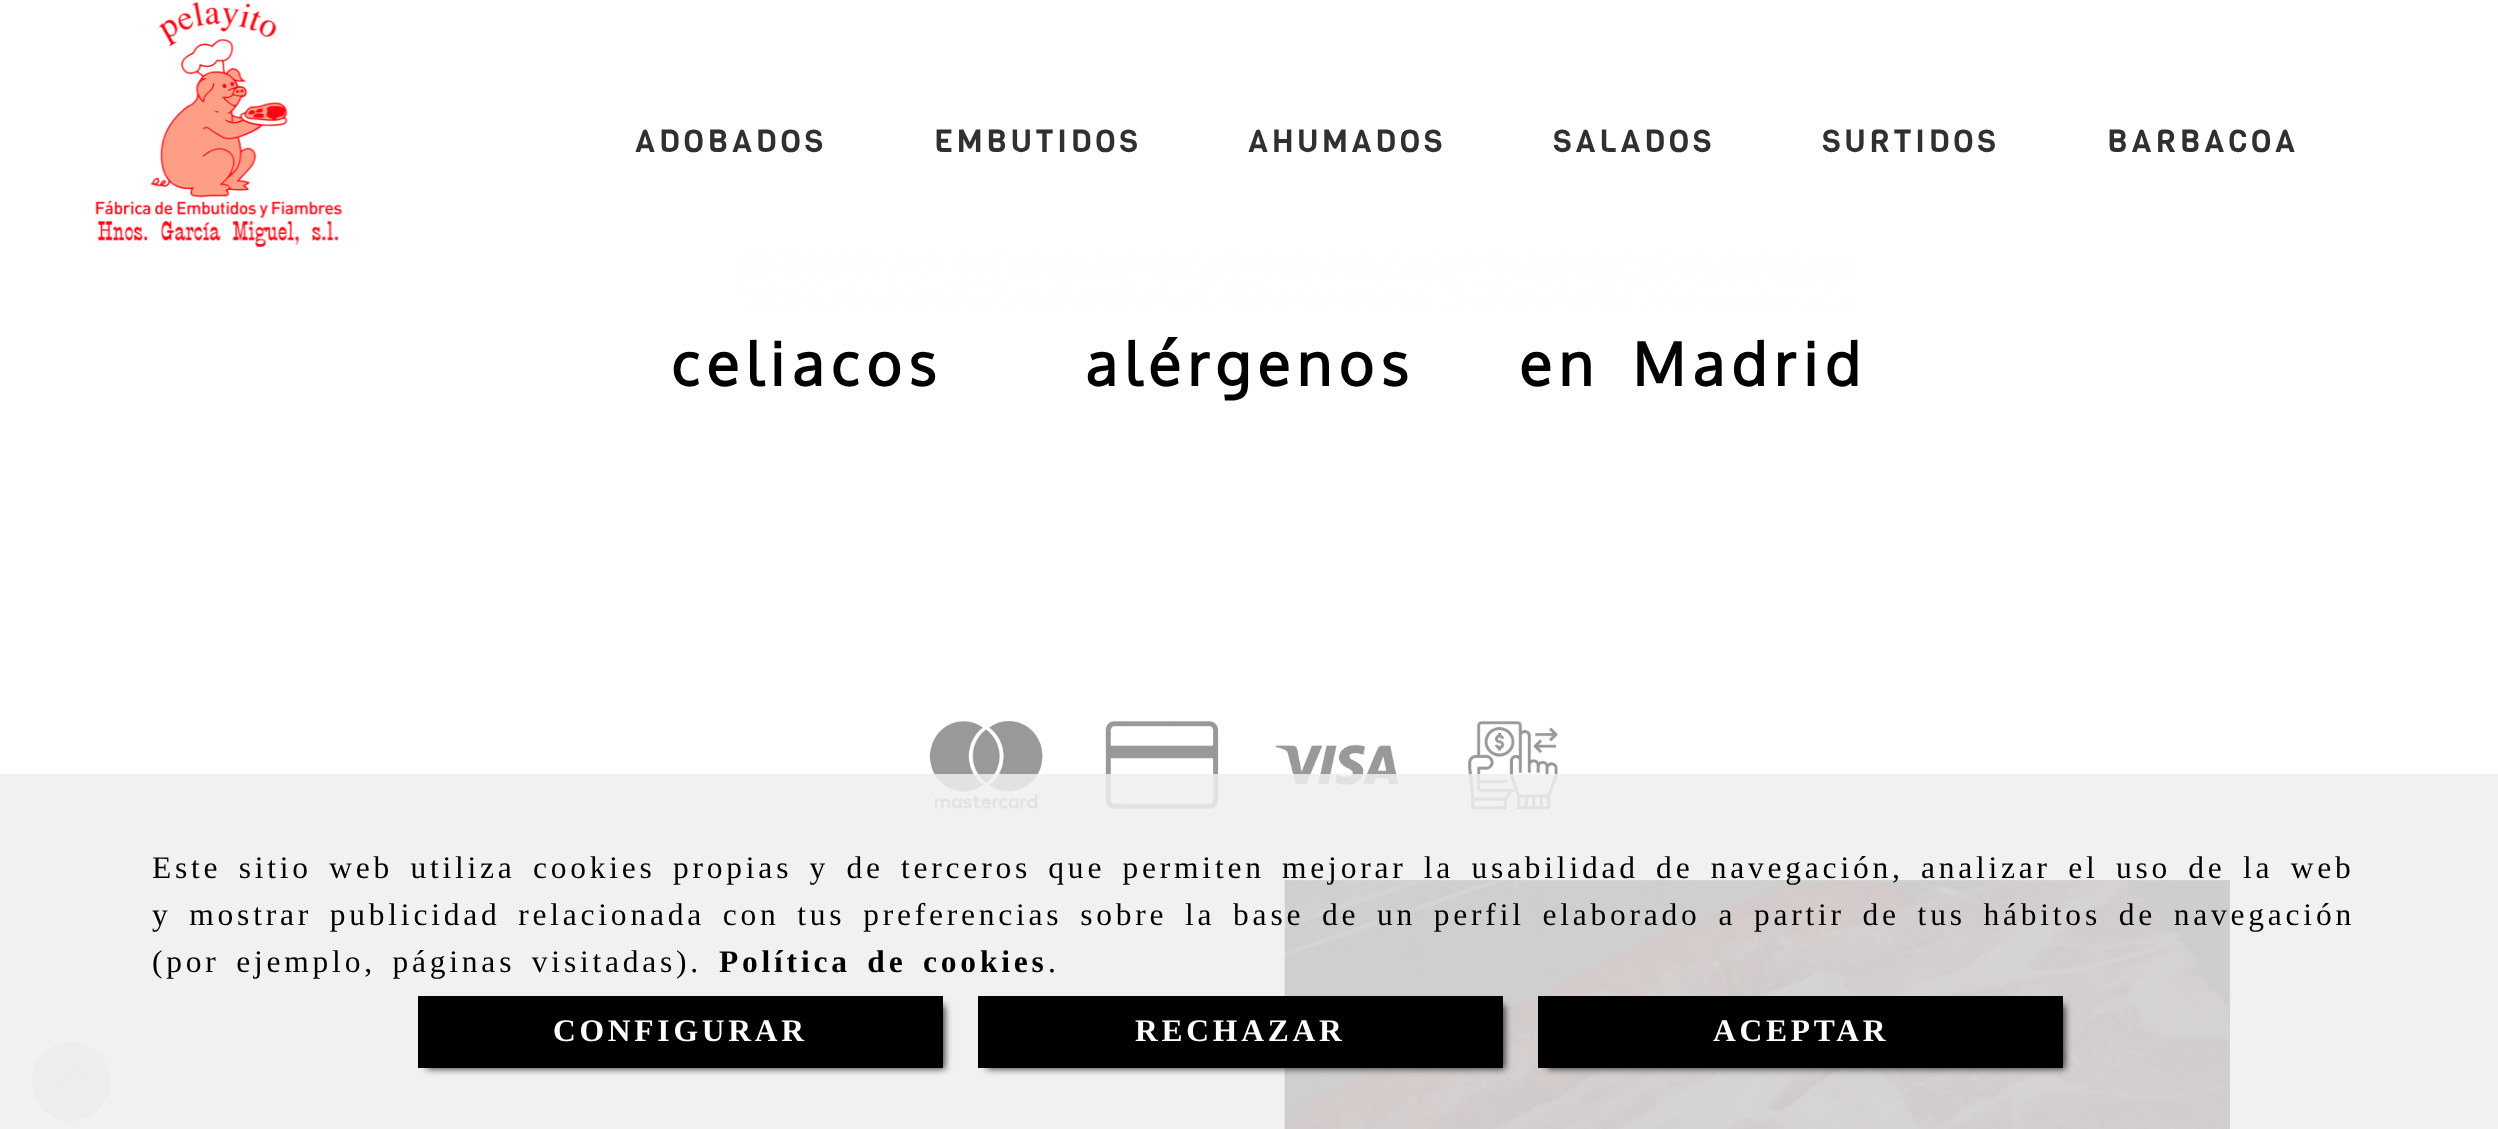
<!DOCTYPE html>
<meta charset="utf-8">
<style>body { margin: 0 } canvas { display: block }</style>
<canvas id="canvas" width="2498" height="1129"></canvas>
<script type="module">
  const canvas = document.getElementById("canvas");
  const ctx = canvas.getContext("2d");
  ctx.miterLimit = 4;
  ctx.fontKerning = "normal";
  async function loadImage(src) {
    const img = new Image();
    img.src = src;
    await img.decode();
    return img;
  }

  ctx.fillStyle = "#ffffff";
  ctx.fillRect(0, 0, 2498, 1129);
  ctx.fillStyle = "#4d4d4d";
  ctx.fillRect(1285, 880, 945, 249);
  ctx.drawImage(await loadImage("img1.png"), 95, 1, 248, 246);
  ctx.letterSpacing = "3.78px";
  ctx.font = "31.5px Viga";
  ctx.fillStyle = "#303030";
  ctx.fillText("ADOBADOS", 635, 152);
  ctx.fillText("EMBUTIDOS", 934, 152);
  ctx.fillText("AHUMADOS", 1248, 152);
  ctx.fillText("SALADOS", 1553, 152);
  ctx.fillText("SURTIDOS", 1822, 152);
  ctx.fillText("BARBACOA", 2107, 152);
  ctx.drawImage(await loadImage("img2.png"), 736, 252, 1117, 59);
  ctx.letterSpacing = "7.25px";
  ctx.font = "bold 59.5px Oxygen";
  ctx.fillStyle = "#000000";
  ctx.fillText("celiacos", 671, 386);
  ctx.fillText("alérgenos", 1085, 386);
  ctx.wordSpacing = "10px";
  ctx.fillText("en Madrid", 1519, 386);
  ctx.drawImage(await loadImage("img3.png"), 929, 721, 114, 88);
  ctx.drawImage(await loadImage("img4.png"), 1105, 721, 114, 88);
  ctx.drawImage(await loadImage("img5.png"), 1275, 744, 124, 41);
  ctx.drawImage(await loadImage("img6.png"), 1468, 721, 90, 89);
  ctx.fillStyle = "#e1e1e1";
  ctx.beginPath();
  ctx.moveTo(71, 1121);
  ctx.bezierCurveTo(108, 1121, 125, 1073, 95, 1050);
  ctx.bezierCurveTo(88, 1045, 79, 1042, 71, 1042);
  ctx.bezierCurveTo(62, 1042, 54, 1045, 47, 1050);
  ctx.bezierCurveTo(17, 1073, 34, 1121, 71, 1121);
  ctx.closePath();
  ctx.fill();
  ctx.drawImage(await loadImage("img7.png"), 55, 1065, 29, 32);
  ctx.drawImage(await loadImage("img8.png"), 1284, 880, 946, 249);
  ctx.fillStyle = "rgba(238, 238, 238, 0.85)";
  ctx.fillRect(0, 774, 2498, 355);
  ctx.letterSpacing = "3.78px";
  ctx.wordSpacing = "5.7px";
  ctx.font = "31.5px Liberation Serif";
  ctx.fillStyle = "#000000";
  ctx.fillText("Este sitio web utiliza cookies propias y de terceros que permiten mejorar la usabilidad de navegación, analizar el uso de la web", 152, 878);
  ctx.wordSpacing = "6.1px";
  ctx.fillText("y mostrar publicidad relacionada con tus preferencias sobre la base de un perfil elaborado a partir de tus hábitos de navegación", 152, 925);
  ctx.wordSpacing = "5px";
  ctx.fillText("(por ejemplo, páginas visitadas).", 152, 972);
  ctx.font = "bold 31.5px Liberation Serif";
  ctx.fillText("Política de cookies", 719, 972);
  ctx.wordSpacing = "0px";
  ctx.font = "31.5px Liberation Serif";
  ctx.fillText(".", 1048, 972);
  ctx.fillStyle = "rgba(0, 0, 0, 0.75)";
  ctx.filter = "blur(3.5px)";
  ctx.beginPath();
  ctx.rect(427, 1005, 518, 64);
  ctx.fill();
  ctx.filter = "none";
  ctx.fillStyle = "#000000";
  ctx.fillRect(418, 996, 525, 72);
  ctx.font = "bold 31.5px Liberation Serif";
  ctx.fillStyle = "#ffffff";
  ctx.fillText("CONFIGURAR", 553, 1041);
  ctx.fillStyle = "rgba(0, 0, 0, 0.75)";
  ctx.filter = "blur(3.5px)";
  ctx.beginPath();
  ctx.rect(987, 1005, 518, 64);
  ctx.fill();
  ctx.filter = "none";
  ctx.fillStyle = "#000000";
  ctx.fillRect(978, 996, 525, 72);
  ctx.fillStyle = "#ffffff";
  ctx.fillText("RECHAZAR", 1135, 1041);
  ctx.fillStyle = "rgba(0, 0, 0, 0.75)";
  ctx.filter = "blur(3.5px)";
  ctx.beginPath();
  ctx.rect(1547, 1005, 518, 64);
  ctx.fill();
  ctx.filter = "none";
  ctx.fillStyle = "#000000";
  ctx.fillRect(1538, 996, 525, 72);
  ctx.fillStyle = "#ffffff";
  ctx.fillText("ACEPTAR", 1713, 1041);
</script>
